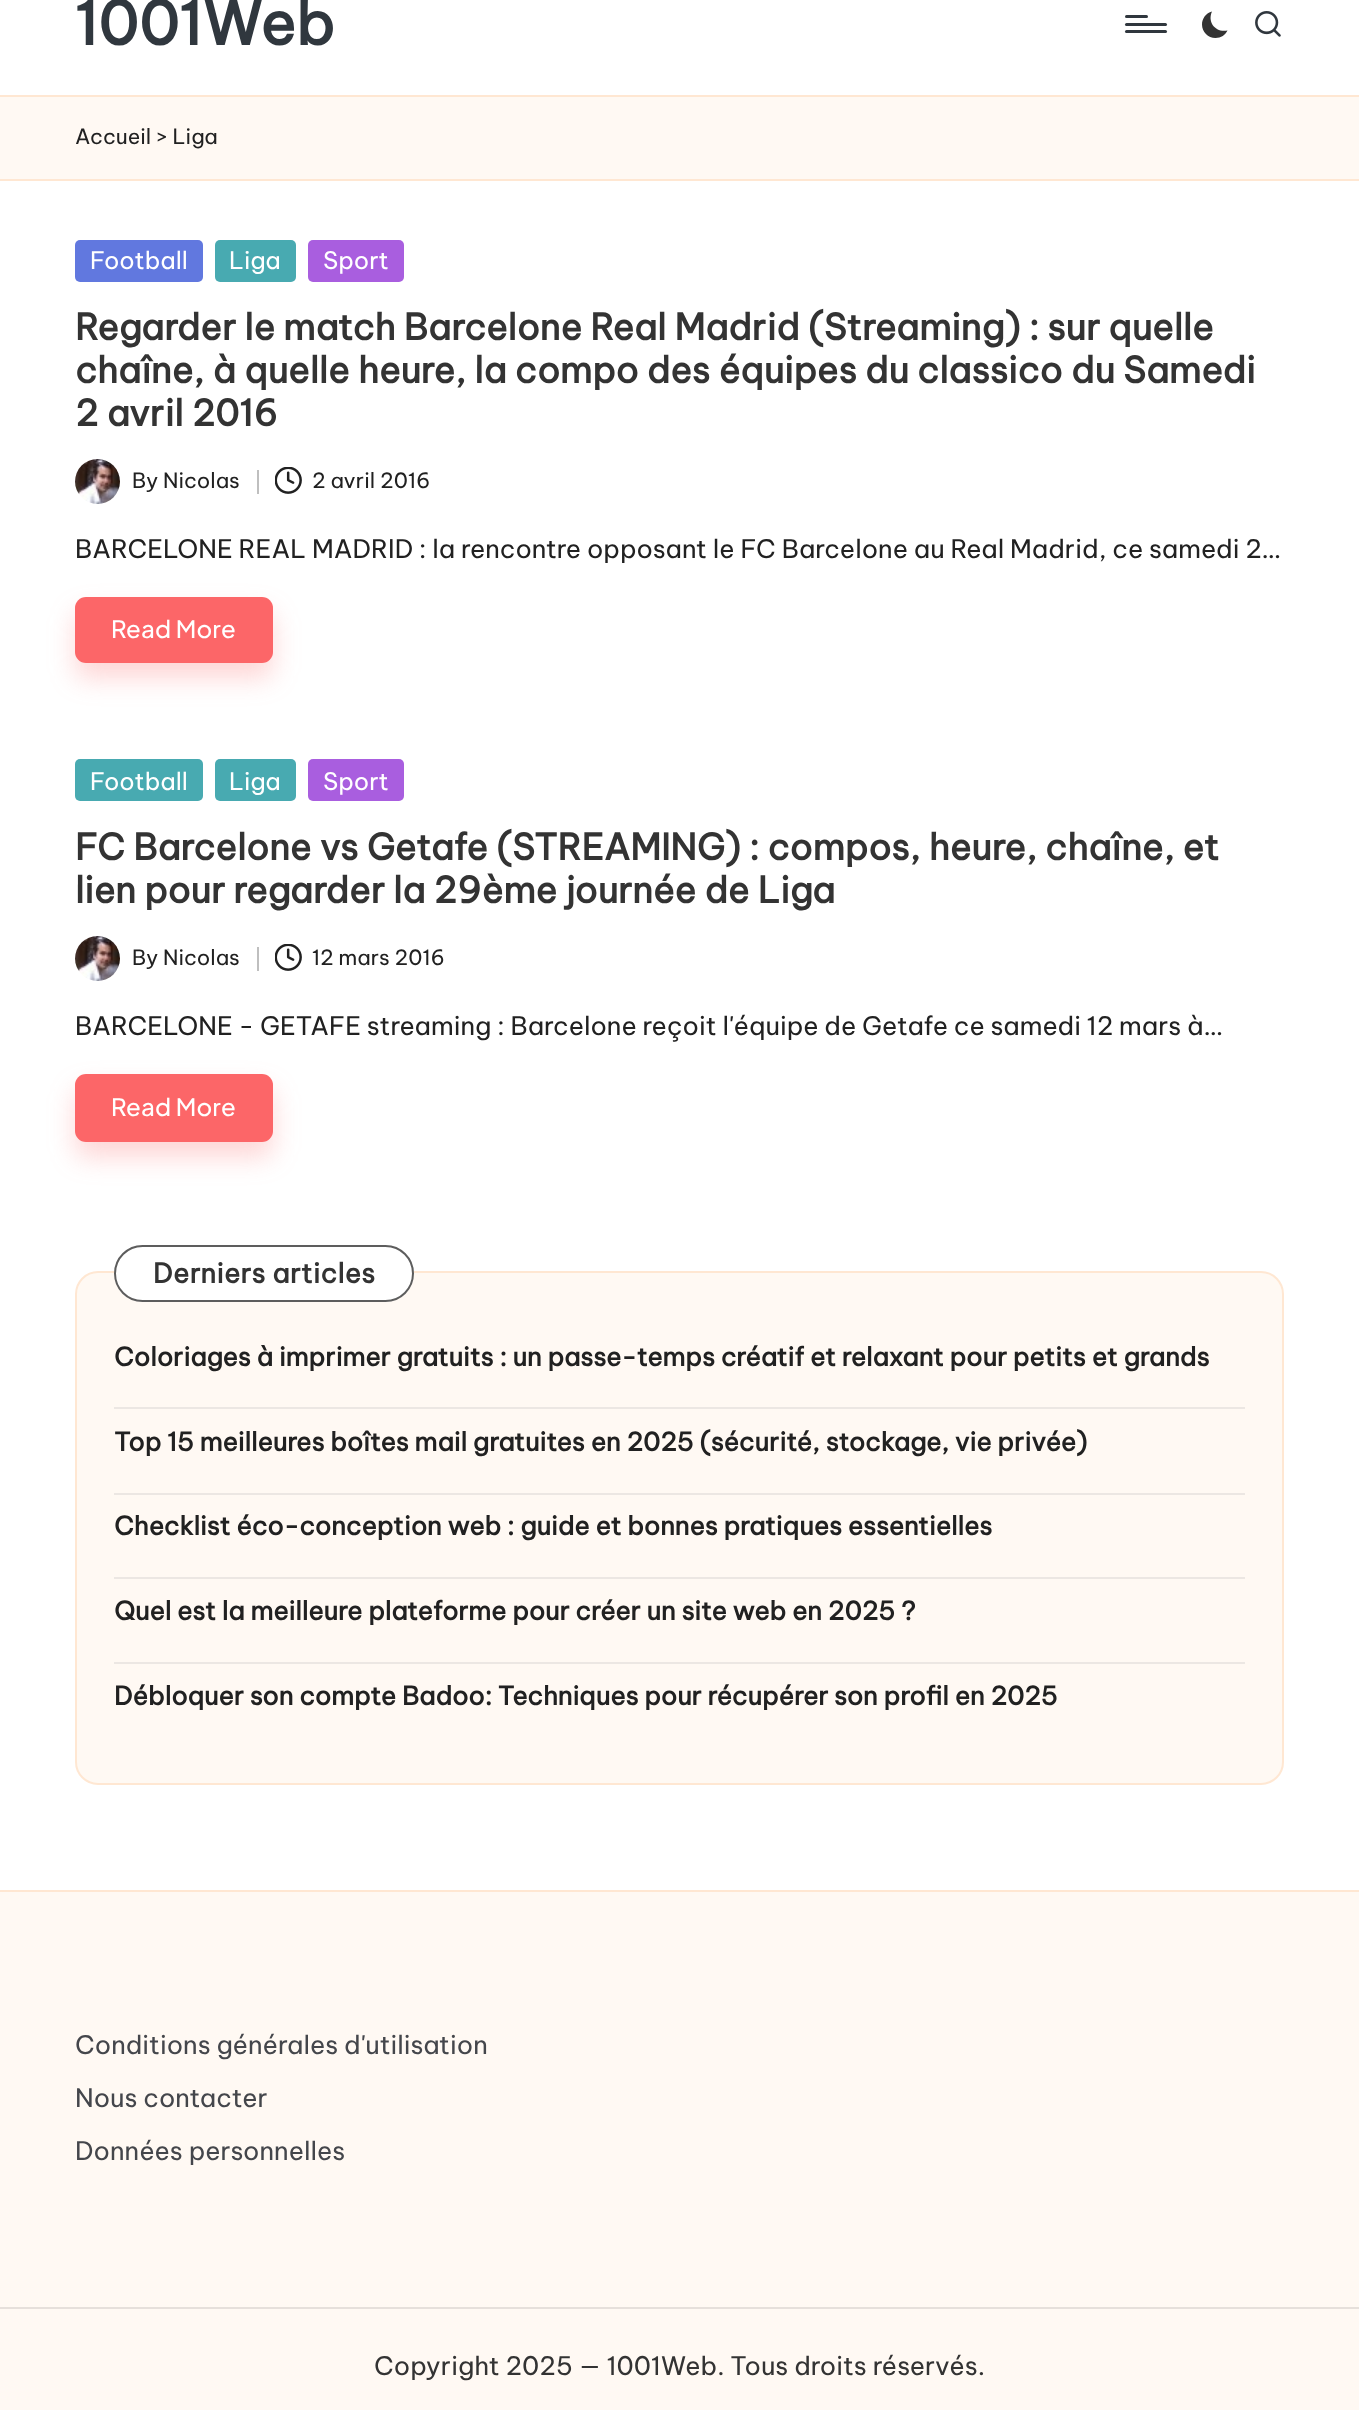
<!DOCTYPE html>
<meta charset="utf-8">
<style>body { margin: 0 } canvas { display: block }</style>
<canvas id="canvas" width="1359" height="2410"></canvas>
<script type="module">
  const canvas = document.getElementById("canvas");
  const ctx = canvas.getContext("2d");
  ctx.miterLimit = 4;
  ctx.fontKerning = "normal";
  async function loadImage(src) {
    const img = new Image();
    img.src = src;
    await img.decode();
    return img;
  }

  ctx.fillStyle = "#ffffff";
  ctx.fillRect(0, 0, 1359, 2410);
  ctx.font = "bold 60px Be Vietnam Pro";
  ctx.fillStyle = "#30373e";
  ctx.fillText("1001Web", 75, 45);
  ctx.beginPath();
  ctx.roundRect(1125, 23, 42, 3, 1.5);
  ctx.fill();
  ctx.beginPath();
  ctx.roundRect(1125, 15, 23, 3, 1.5);
  ctx.fill();
  ctx.beginPath();
  ctx.roundRect(1125, 30, 42, 3, 1.5);
  ctx.fill();
  ctx.fillStyle = "#333333";
  ctx.beginPath();
  ctx.moveTo(1227.5, 30.5);
  ctx.bezierCurveTo(1216, 33, 1207, 22.5, 1212, 11.5);
  ctx.bezierCurveTo(1206, 13, 1202, 18.5, 1202, 24.5);
  ctx.bezierCurveTo(1202, 32, 1208, 38, 1215.5, 38);
  ctx.bezierCurveTo(1221, 38, 1225.5, 35, 1227.5, 30.5);
  ctx.closePath();
  ctx.fill();
  ctx.drawImage(await loadImage("img1.png"), 1255, 11, 26, 26);
  ctx.fillStyle = "#fff9f3";
  ctx.fillRect(0, 97, 1359, 82);
  ctx.fillStyle = "#ffe7d2";
  ctx.fillRect(0, 95, 1359, 2);
  ctx.fillRect(0, 179, 1359, 2);
  ctx.font = "21px Be Vietnam Pro";
  ctx.fillStyle = "#212121";
  ctx.fillText("Accueil", 75, 144);
  ctx.fillText("> Liga", 156, 144);
  ctx.fillStyle = "#6178df";
  ctx.beginPath();
  ctx.roundRect(75, 240, 128, 42, 5);
  ctx.fill();
  ctx.font = "24px Be Vietnam Pro";
  ctx.fillStyle = "#ffffff";
  ctx.fillText("Football", 90, 269);
  ctx.fillStyle = "#48aab1";
  ctx.beginPath();
  ctx.roundRect(215, 240, 81, 42, 5);
  ctx.fill();
  ctx.fillStyle = "#ffffff";
  ctx.fillText("Liga", 229, 269);
  ctx.fillStyle = "#a95edf";
  ctx.beginPath();
  ctx.roundRect(308, 240, 96, 42, 5);
  ctx.fill();
  ctx.fillStyle = "#ffffff";
  ctx.fillText("Sport", 323, 269);
  ctx.font = "bold 36px Be Vietnam Pro";
  ctx.fillStyle = "#333333";
  ctx.fillText("Regarder le match Barcelone Real Madrid (Streaming) : sur quelle", 75, 340);
  ctx.fillText("chaîne, à quelle heure, la compo des équipes du classico du Samedi", 75, 383);
  ctx.fillText("2 avril 2016", 75, 426);
  ctx.drawImage(await loadImage("img2.png"), 75, 459, 45, 45);
  ctx.font = "21px Be Vietnam Pro";
  ctx.fillStyle = "#212121";
  ctx.fillText("By Nicolas", 132, 488);
  ctx.fillStyle = "#bfbfbf";
  ctx.fillRect(257, 470, 2, 24);
  ctx.drawImage(await loadImage("img3.png"), 275, 467, 27, 27);
  ctx.fillStyle = "#212121";
  ctx.fillText("2 avril 2016", 312, 488);
  ctx.font = "25.5px Be Vietnam Pro";
  ctx.fillText("BARCELONE REAL MADRID : la rencontre opposant le FC Barcelone au Real Madrid, ce samedi 2…", 75, 558);
  ctx.fillStyle = "rgba(252, 102, 104, 0.27)";
  ctx.filter = "blur(13.5px)";
  ctx.beginPath();
  ctx.roundRect(75, 612, 198, 66, 11);
  ctx.fill();
  ctx.filter = "none";
  ctx.fillStyle = "#fc6668";
  ctx.beginPath();
  ctx.roundRect(75, 597, 198, 66, 11);
  ctx.fill();
  ctx.letterSpacing = "0.25px";
  ctx.font = "500 24px Plus Jakarta Sans";
  ctx.fillStyle = "#ffffff";
  ctx.fillText("Read More", 111, 638);
  ctx.fillStyle = "#48aab1";
  ctx.beginPath();
  ctx.roundRect(75, 759, 128, 42, 5);
  ctx.fill();
  ctx.letterSpacing = "0px";
  ctx.font = "24px Be Vietnam Pro";
  ctx.fillStyle = "#ffffff";
  ctx.fillText("Football", 90, 790);
  ctx.fillStyle = "#48aab1";
  ctx.beginPath();
  ctx.roundRect(215, 759, 81, 42, 5);
  ctx.fill();
  ctx.fillStyle = "#ffffff";
  ctx.fillText("Liga", 229, 790);
  ctx.fillStyle = "#a95edf";
  ctx.beginPath();
  ctx.roundRect(308, 759, 96, 42, 5);
  ctx.fill();
  ctx.fillStyle = "#ffffff";
  ctx.fillText("Sport", 323, 790);
  ctx.font = "bold 36px Be Vietnam Pro";
  ctx.fillStyle = "#333333";
  ctx.fillText("FC Barcelone vs Getafe (STREAMING) : compos, heure, chaîne, et", 75, 860);
  ctx.fillText("lien pour regarder la 29ème journée de Liga", 75, 903);
  ctx.drawImage(await loadImage("img2.png"), 75, 936, 45, 45);
  ctx.font = "21px Be Vietnam Pro";
  ctx.fillStyle = "#212121";
  ctx.fillText("By Nicolas", 132, 965);
  ctx.fillStyle = "#bfbfbf";
  ctx.fillRect(257, 947, 2, 24);
  ctx.drawImage(await loadImage("img3.png"), 275, 944, 27, 27);
  ctx.fillStyle = "#212121";
  ctx.fillText("12 mars 2016", 312, 965);
  ctx.font = "25.5px Be Vietnam Pro";
  ctx.fillText("BARCELONE - GETAFE streaming : Barcelone reçoit l'équipe de Getafe ce samedi 12 mars à…", 75, 1035);
  ctx.fillStyle = "rgba(252, 102, 104, 0.27)";
  ctx.filter = "blur(13.5px)";
  ctx.beginPath();
  ctx.roundRect(75, 1089, 198, 68, 11);
  ctx.fill();
  ctx.filter = "none";
  ctx.fillStyle = "#fc6668";
  ctx.beginPath();
  ctx.roundRect(75, 1074, 198, 68, 11);
  ctx.fill();
  ctx.letterSpacing = "0.25px";
  ctx.font = "500 24px Plus Jakarta Sans";
  ctx.fillStyle = "#ffffff";
  ctx.fillText("Read More", 111, 1116);
  ctx.fillStyle = "#fff9f3";
  ctx.beginPath();
  ctx.roundRect(76, 1272, 1207, 512, 22);
  ctx.fill();
  ctx.strokeStyle = "#ffe7d2";
  ctx.lineWidth = 2;
  ctx.stroke();
  ctx.fillStyle = "#ffffff";
  ctx.beginPath();
  ctx.roundRect(114, 1245, 300, 57, 28.5);
  ctx.fill();
  ctx.beginPath();
  ctx.roundRect(115, 1246, 298, 55, 27.5);
  ctx.strokeStyle = "rgba(39, 39, 39, 0.75)";
  ctx.stroke();
  ctx.letterSpacing = "0.4px";
  ctx.font = "bold 27px Be Vietnam Pro";
  ctx.fillStyle = "#333333";
  ctx.fillText("Derniers articles", 153, 1283);
  ctx.letterSpacing = "0px";
  ctx.font = "bold 25.5px Be Vietnam Pro";
  ctx.fillStyle = "#212121";
  ctx.fillText("Coloriages à imprimer gratuits : un passe-temps créatif et relaxant pour petits et grands", 114, 1366);
  ctx.fillStyle = "#ece7e3";
  ctx.fillRect(114, 1407, 1131, 2);
  ctx.fillStyle = "#212121";
  ctx.fillText("Top 15 meilleures boîtes mail gratuites en 2025 (sécurité, stockage, vie privée)", 114, 1451);
  ctx.fillStyle = "#ece7e3";
  ctx.fillRect(114, 1493, 1131, 2);
  ctx.fillStyle = "#212121";
  ctx.fillText("Checklist éco-conception web : guide et bonnes pratiques essentielles", 114, 1535);
  ctx.fillStyle = "#ece7e3";
  ctx.fillRect(114, 1577, 1131, 2);
  ctx.fillStyle = "#212121";
  ctx.fillText("Quel est la meilleure plateforme pour créer un site web en 2025 ?", 114, 1620);
  ctx.fillStyle = "#ece7e3";
  ctx.fillRect(114, 1662, 1131, 2);
  ctx.fillStyle = "#212121";
  ctx.fillText("Débloquer son compte Badoo: Techniques pour récupérer son profil en 2025", 114, 1705);
  ctx.fillStyle = "#fff9f3";
  ctx.fillRect(0, 1892, 1359, 518);
  ctx.fillStyle = "#ffe7d2";
  ctx.fillRect(0, 1890, 1359, 2);
  ctx.font = "25.5px Be Vietnam Pro";
  ctx.fillStyle = "#44464b";
  ctx.fillText("Conditions générales d'utilisation", 75, 2054);
  ctx.fillText("Nous contacter", 75, 2107);
  ctx.fillText("Données personnelles", 75, 2160);
  ctx.fillStyle = "#e6e0db";
  ctx.fillRect(0, 2307, 1359, 2);
  ctx.fillStyle = "#333333";
  ctx.fillText("Copyright 2025 — 1001Web. Tous droits réservés.", 374, 2375);
</script>
